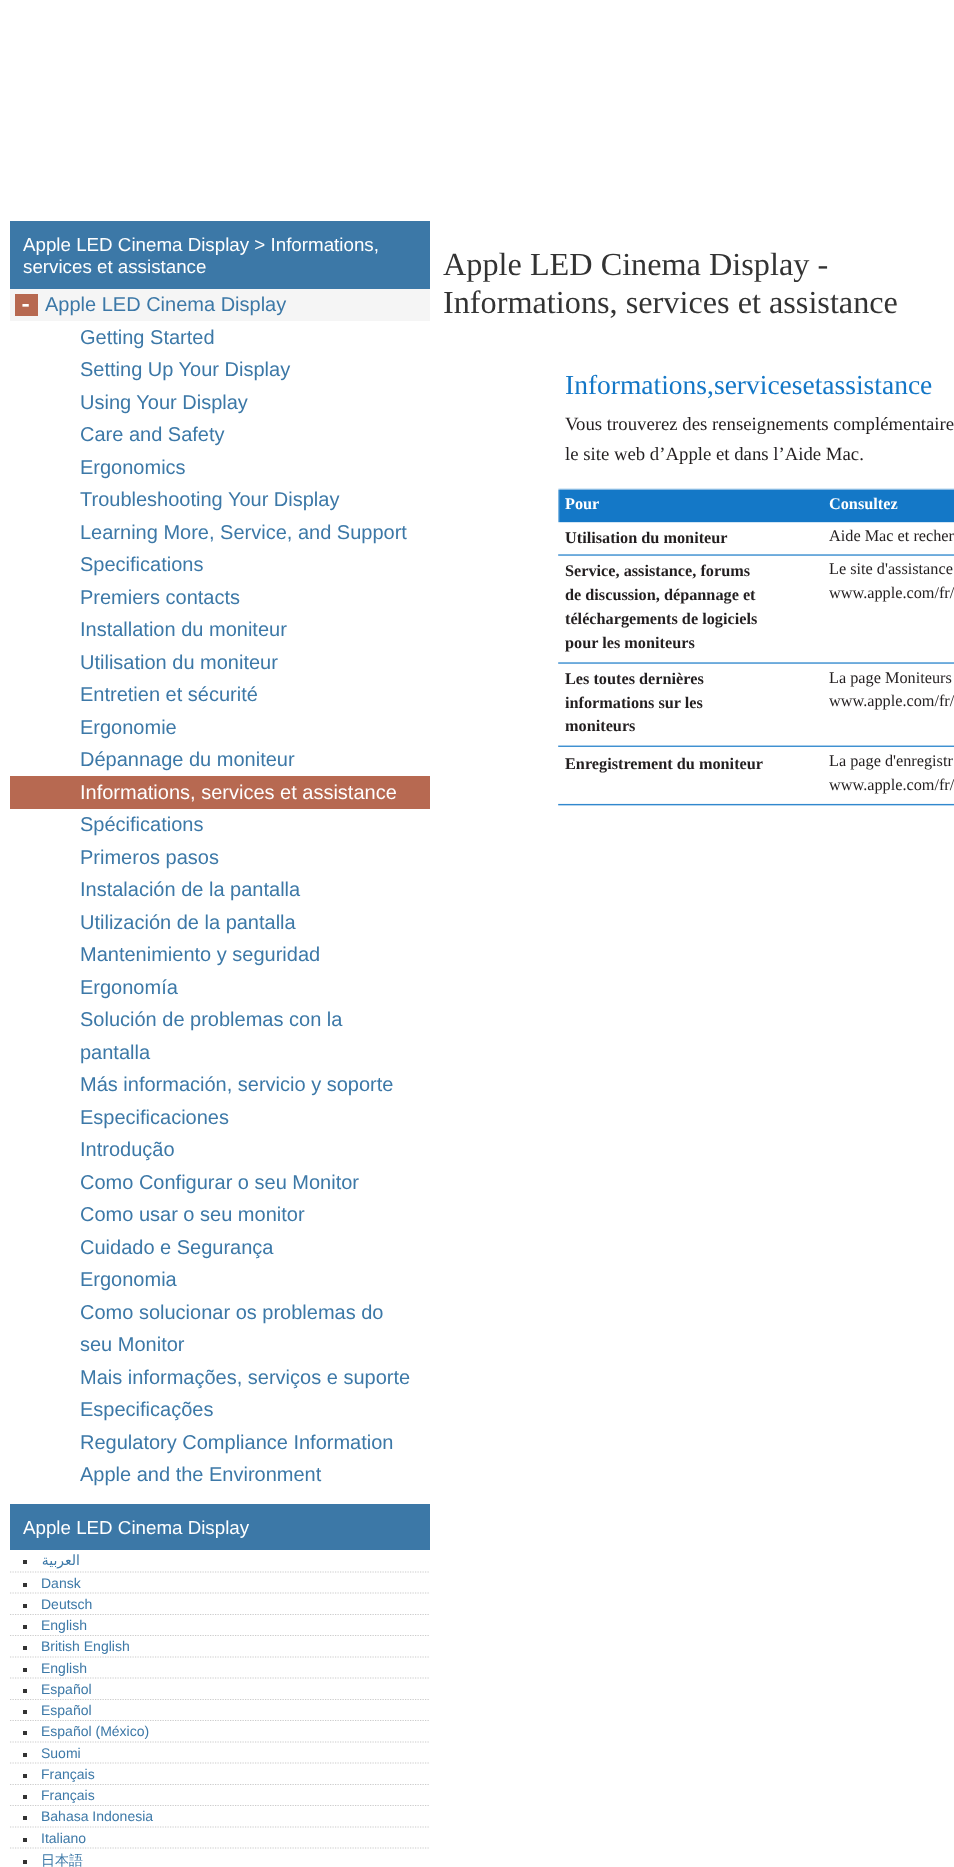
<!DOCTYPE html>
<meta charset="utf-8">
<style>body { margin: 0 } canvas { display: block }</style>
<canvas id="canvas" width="954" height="1867"></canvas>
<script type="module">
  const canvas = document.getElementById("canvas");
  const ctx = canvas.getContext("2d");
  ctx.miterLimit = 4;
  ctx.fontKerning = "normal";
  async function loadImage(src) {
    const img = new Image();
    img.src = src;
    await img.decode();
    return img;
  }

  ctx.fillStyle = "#ffffff";
  ctx.fillRect(0, 0, 954, 1867);
  ctx.fillStyle = "#3c78a7";
  ctx.fillRect(10, 221, 420, 68);
  ctx.font = "18.75px Liberation Sans";
  ctx.fillStyle = "#ffffff";
  ctx.fillText("Apple LED Cinema Display > Informations,", 23, 251);
  ctx.fillText("services et assistance", 23, 273);
  ctx.fillStyle = "#f5f5f5";
  ctx.fillRect(10, 289, 420, 32);
  ctx.fillStyle = "#b76951";
  ctx.fillRect(15, 294, 23, 22);
  ctx.font = "bold 22px Liberation Mono";
  ctx.fillStyle = "#ffffff";
  ctx.fillText("-", 19, 311);
  ctx.font = "20px Liberation Sans";
  ctx.fillStyle = "#3c78a7";
  ctx.fillText("Apple LED Cinema Display", 45, 311);
  ctx.fillText("Getting Started", 80, 344);
  ctx.fillText("Setting Up Your Display", 80, 376);
  ctx.fillText("Using Your Display", 80, 409);
  ctx.fillText("Care and Safety", 80, 441);
  ctx.fillText("Ergonomics", 80, 474);
  ctx.fillText("Troubleshooting Your Display", 80, 506);
  ctx.fillText("Learning More, Service, and Support", 80, 539);
  ctx.fillText("Specifications", 80, 571);
  ctx.fillText("Premiers contacts", 80, 604);
  ctx.fillText("Installation du moniteur", 80, 636);
  ctx.fillText("Utilisation du moniteur", 80, 669);
  ctx.fillText("Entretien et sécurité", 80, 701);
  ctx.fillText("Ergonomie", 80, 734);
  ctx.fillText("Dépannage du moniteur", 80, 766);
  ctx.fillStyle = "#b76951";
  ctx.fillRect(10, 776, 420, 33);
  ctx.fillStyle = "#ffffff";
  ctx.fillText("Informations, services et assistance", 80, 799);
  ctx.fillStyle = "#3c78a7";
  ctx.fillText("Spécifications", 80, 831);
  ctx.fillText("Primeros pasos", 80, 864);
  ctx.fillText("Instalación de la pantalla", 80, 896);
  ctx.fillText("Utilización de la pantalla", 80, 929);
  ctx.fillText("Mantenimiento y seguridad", 80, 961);
  ctx.fillText("Ergonomía", 80, 994);
  ctx.fillText("Solución de problemas con la", 80, 1026);
  ctx.fillText("pantalla", 80, 1059);
  ctx.fillText("Más información, servicio y soporte", 80, 1091);
  ctx.fillText("Especificaciones", 80, 1124);
  ctx.fillText("Introdução", 80, 1156);
  ctx.fillText("Como Configurar o seu Monitor", 80, 1189);
  ctx.fillText("Como usar o seu monitor", 80, 1221);
  ctx.fillText("Cuidado e Segurança", 80, 1254);
  ctx.fillText("Ergonomia", 80, 1286);
  ctx.fillText("Como solucionar os problemas do", 80, 1319);
  ctx.fillText("seu Monitor", 80, 1351);
  ctx.fillText("Mais informações, serviços e suporte", 80, 1384);
  ctx.fillText("Especificações", 80, 1416);
  ctx.fillText("Regulatory Compliance Information", 80, 1449);
  ctx.fillText("Apple and the Environment", 80, 1481);
  ctx.fillRect(10, 1504, 420, 46);
  ctx.font = "18.75px Liberation Sans";
  ctx.fillStyle = "#ffffff";
  ctx.fillText("Apple LED Cinema Display", 23, 1534);
  ctx.beginPath();
  ctx.moveTo(10, 1572);
  ctx.lineTo(430, 1572);
  ctx.strokeStyle = "#cccccc";
  ctx.lineWidth = 1.2;
  ctx.setLineDash([1.25, 1.25]);
  ctx.stroke();
  ctx.fillStyle = "#333333";
  ctx.fillRect(23, 1560, 4, 4);
  ctx.direction = "rtl";
  ctx.font = "14px DejaVu Sans";
  ctx.fillStyle = "#3c78a7";
  ctx.fillText("العربية", 80, 1565);
  ctx.beginPath();
  ctx.moveTo(10, 1593);
  ctx.lineTo(430, 1593);
  ctx.stroke();
  ctx.fillStyle = "#333333";
  ctx.fillRect(23, 1583, 4, 4);
  ctx.direction = "ltr";
  ctx.font = "14px Liberation Sans";
  ctx.fillStyle = "#3c78a7";
  ctx.fillText("Dansk", 41, 1588);
  ctx.beginPath();
  ctx.moveTo(10, 1614.5);
  ctx.lineTo(430, 1614.5);
  ctx.stroke();
  ctx.fillStyle = "#333333";
  ctx.fillRect(23, 1604, 4, 4);
  ctx.fillStyle = "#3c78a7";
  ctx.fillText("Deutsch", 41, 1609);
  ctx.beginPath();
  ctx.moveTo(10, 1635.5);
  ctx.lineTo(430, 1635.5);
  ctx.stroke();
  ctx.fillStyle = "#333333";
  ctx.fillRect(23, 1625, 4, 4);
  ctx.fillStyle = "#3c78a7";
  ctx.fillText("English", 41, 1630);
  ctx.beginPath();
  ctx.moveTo(10, 1657);
  ctx.lineTo(430, 1657);
  ctx.stroke();
  ctx.fillStyle = "#333333";
  ctx.fillRect(23, 1646, 4, 4);
  ctx.fillStyle = "#3c78a7";
  ctx.fillText("British English", 41, 1651);
  ctx.beginPath();
  ctx.moveTo(10, 1678);
  ctx.lineTo(430, 1678);
  ctx.stroke();
  ctx.fillStyle = "#333333";
  ctx.fillRect(23, 1668, 4, 4);
  ctx.fillStyle = "#3c78a7";
  ctx.fillText("English", 41, 1673);
  ctx.beginPath();
  ctx.moveTo(10, 1699.5);
  ctx.lineTo(430, 1699.5);
  ctx.stroke();
  ctx.fillStyle = "#333333";
  ctx.fillRect(23, 1689, 4, 4);
  ctx.fillStyle = "#3c78a7";
  ctx.fillText("Español", 41, 1694);
  ctx.beginPath();
  ctx.moveTo(10, 1720.5);
  ctx.lineTo(430, 1720.5);
  ctx.stroke();
  ctx.fillStyle = "#333333";
  ctx.fillRect(23, 1710, 4, 4);
  ctx.fillStyle = "#3c78a7";
  ctx.fillText("Español", 41, 1715);
  ctx.beginPath();
  ctx.moveTo(10, 1742);
  ctx.lineTo(430, 1742);
  ctx.stroke();
  ctx.fillStyle = "#333333";
  ctx.fillRect(23, 1731, 4, 4);
  ctx.fillStyle = "#3c78a7";
  ctx.fillText("Español (México)", 41, 1736);
  ctx.beginPath();
  ctx.moveTo(10, 1763);
  ctx.lineTo(430, 1763);
  ctx.stroke();
  ctx.fillStyle = "#333333";
  ctx.fillRect(23, 1753, 4, 4);
  ctx.fillStyle = "#3c78a7";
  ctx.fillText("Suomi", 41, 1758);
  ctx.beginPath();
  ctx.moveTo(10, 1784.5);
  ctx.lineTo(430, 1784.5);
  ctx.stroke();
  ctx.fillStyle = "#333333";
  ctx.fillRect(23, 1774, 4, 4);
  ctx.fillStyle = "#3c78a7";
  ctx.fillText("Français", 41, 1779);
  ctx.beginPath();
  ctx.moveTo(10, 1805.5);
  ctx.lineTo(430, 1805.5);
  ctx.stroke();
  ctx.fillStyle = "#333333";
  ctx.fillRect(23, 1795, 4, 4);
  ctx.fillStyle = "#3c78a7";
  ctx.fillText("Français", 41, 1800);
  ctx.beginPath();
  ctx.moveTo(10, 1827);
  ctx.lineTo(430, 1827);
  ctx.stroke();
  ctx.fillStyle = "#333333";
  ctx.fillRect(23, 1816, 4, 4);
  ctx.fillStyle = "#3c78a7";
  ctx.fillText("Bahasa Indonesia", 41, 1821);
  ctx.beginPath();
  ctx.moveTo(10, 1848);
  ctx.lineTo(430, 1848);
  ctx.stroke();
  ctx.fillStyle = "#333333";
  ctx.fillRect(23, 1838, 4, 4);
  ctx.fillStyle = "#3c78a7";
  ctx.fillText("Italiano", 41, 1843);
  ctx.fillStyle = "#333333";
  ctx.fillRect(23, 1860, 4, 4);
  ctx.font = "500 14px WenQuanYi Zen Hei";
  ctx.fillStyle = "#3c78a7";
  ctx.fillText("日本語", 41, 1865);
  ctx.font = "32.25px Liberation Serif";
  ctx.fillStyle = "#333333";
  ctx.fillText("Apple LED Cinema Display -", 443, 275);
  ctx.fillText("Informations, services et assistance", 443, 313);
  ctx.font = "27.5px Liberation Serif";
  ctx.fillStyle = "#1377c7";
  ctx.fillText("Informations,servicesetassistance", 565, 394);
  ctx.font = "18.75px Liberation Serif";
  ctx.fillStyle = "#231f20";
  ctx.fillText("Vous trouverez des renseignements complémentaire", 565, 430);
  ctx.fillText("le site web d’Apple et dans l’Aide Mac.", 565, 460);
  ctx.drawImage(await loadImage("img1.png"), 558, 488, 396, 318);
  ctx.font = "bold 16.25px Liberation Serif";
  ctx.fillStyle = "#ffffff";
  ctx.fillText("Pour", 565, 509);
  ctx.fillText("Consultez", 829, 509);
  ctx.fillStyle = "#231f20";
  ctx.fillText("Utilisation du moniteur", 565, 543);
  ctx.font = "16.25px Liberation Serif";
  ctx.fillText("Aide Mac et recher", 829, 541);
  ctx.font = "bold 16.25px Liberation Serif";
  ctx.fillText("Service, assistance, forums", 565, 576);
  ctx.fillText("de discussion, dépannage et", 565, 600);
  ctx.fillText("téléchargements de logiciels", 565, 624);
  ctx.fillText("pour les moniteurs", 565, 648);
  ctx.font = "16.25px Liberation Serif";
  ctx.fillText("Le site d'assistance", 829, 574);
  ctx.fillText("www.apple.com/fr/", 829, 598);
  ctx.font = "bold 16.25px Liberation Serif";
  ctx.fillText("Les toutes dernières", 565, 684);
  ctx.fillText("informations sur les", 565, 708);
  ctx.fillText("moniteurs", 565, 731);
  ctx.font = "16.25px Liberation Serif";
  ctx.fillText("La page Moniteurs", 829, 683);
  ctx.fillText("www.apple.com/fr/", 829, 706);
  ctx.font = "bold 16.25px Liberation Serif";
  ctx.fillText("Enregistrement du moniteur", 565, 769);
  ctx.font = "16.25px Liberation Serif";
  ctx.fillText("La page d'enregistr", 829, 766);
  ctx.fillText("www.apple.com/fr/", 829, 790);
</script>
